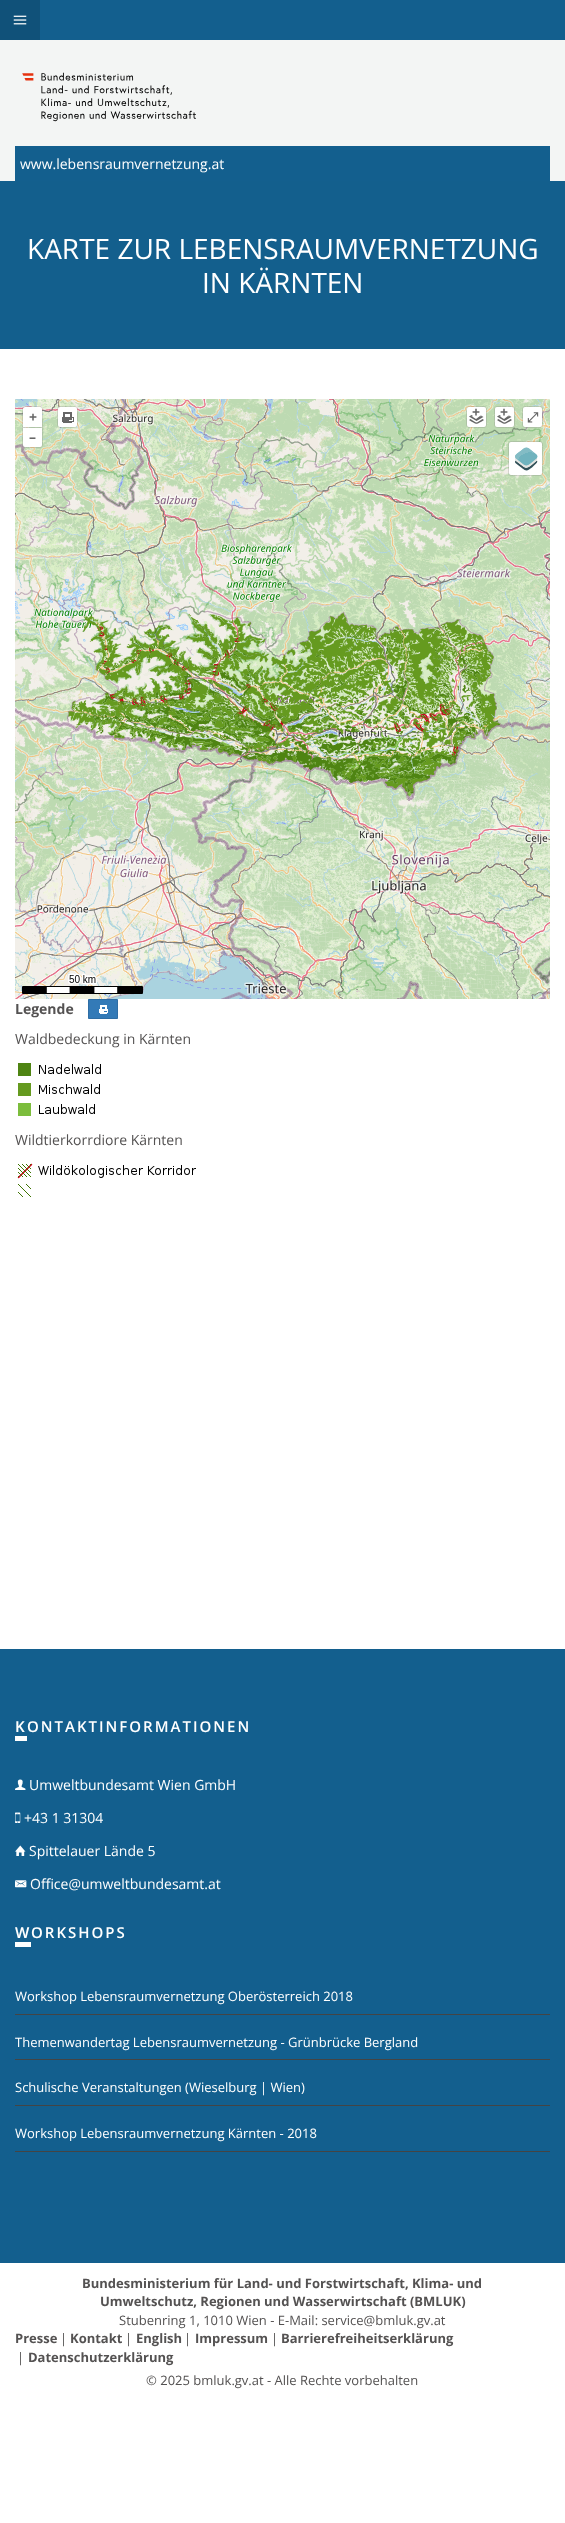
<!DOCTYPE html>
<meta charset="utf-8">
<style>body { margin: 0 } canvas { display: block }</style>
<canvas id="canvas" width="565" height="2523"></canvas>
<script type="module">
  const canvas = document.getElementById("canvas");
  const ctx = canvas.getContext("2d");
  ctx.miterLimit = 4;
  ctx.fontKerning = "normal";
  async function loadImage(src) {
    const img = new Image();
    img.src = src;
    await img.decode();
    return img;
  }

  ctx.fillStyle = "#ffffff";
  ctx.fillRect(0, 0, 565, 2523);
  ctx.fillStyle = "#f3f5f4";
  ctx.fillRect(0, 40, 565, 141);
  ctx.fillStyle = "#135f8e";
  ctx.fillRect(40, 0, 525, 40);
  ctx.fillStyle = "#105179";
  ctx.fillRect(0, 0, 40, 40);
  ctx.drawImage(await loadImage("img1.png"), 13, 15, 14, 10);
  ctx.drawImage(await loadImage("img2.png"), 22, 72, 174, 50);
  ctx.fillStyle = "#135f8e";
  ctx.fillRect(15, 146, 535, 35);
  ctx.font = "14px Open Sans";
  ctx.fillStyle = "#ffffff";
  ctx.fillText("www.lebensraumvernetzung.at", 20, 169);
  ctx.fillStyle = "#135f8d";
  ctx.fillRect(0, 181, 565, 168);
  ctx.font = "28px Open Sans";
  ctx.fillStyle = "#ffffff";
  ctx.fillText("KARTE ZUR LEBENSRAUMVERNETZUNG", 27, 259);
  ctx.fillText("IN KÄRNTEN", 202, 293);
  ctx.drawImage(await loadImage("img3.png"), 15, 399, 535, 600);
  ctx.fillStyle = "rgba(128, 128, 128, 0.25)";
  ctx.beginPath();
  ctx.roundRect(22, 406, 21, 42, 4);
  ctx.fill();
  ctx.fillStyle = "#ffffff";
  ctx.beginPath();
  ctx.roundRect(23, 407, 19, 20, [2, 2, 0, 0]);
  ctx.fill();
  ctx.font = "bold 14px Open Sans";
  ctx.fillStyle = "#666666";
  ctx.fillText("+", 29, 422);
  ctx.fillStyle = "#ffffff";
  ctx.beginPath();
  ctx.roundRect(23, 428, 19, 19, [0, 0, 2, 2]);
  ctx.fill();
  ctx.fillStyle = "#666666";
  ctx.fillText("–", 29, 442);
  ctx.fillStyle = "rgba(128, 128, 128, 0.25)";
  ctx.beginPath();
  ctx.roundRect(57, 406, 21, 22, 4);
  ctx.fill();
  ctx.fillStyle = "#ffffff";
  ctx.beginPath();
  ctx.roundRect(58, 407, 19, 20, 2);
  ctx.fill();
  ctx.fillStyle = "#666666";
  ctx.fillRect(62, 420, 7, 1);
  ctx.strokeStyle = "#666666";
  ctx.strokeRect(62.5, 417.5, 11, 4);
  ctx.lineWidth = 2;
  ctx.strokeRect(64, 413, 7, 6);
  ctx.fillRect(63, 422, 9, 1);
  ctx.fillStyle = "rgba(128, 128, 128, 0.25)";
  ctx.beginPath();
  ctx.roundRect(466, 406, 21, 22, 4);
  ctx.fill();
  ctx.fillStyle = "#ffffff";
  ctx.beginPath();
  ctx.roundRect(467, 407, 19, 20, 2);
  ctx.fill();
  ctx.fillStyle = "#666666";
  ctx.fillText("+", 472, 417);
  ctx.beginPath();
  ctx.moveTo(470.5, 419);
  ctx.lineTo(469, 420);
  ctx.bezierCurveTo(477.5, 425, 475.5, 425, 484, 420);
  ctx.lineTo(482.5, 419);
  ctx.bezierCurveTo(475.5, 423.5, 477.5, 423.5, 470.5, 419);
  ctx.closePath();
  ctx.moveTo(481, 415.5);
  ctx.lineTo(480, 416);
  ctx.lineTo(482.5, 417.5);
  ctx.lineTo(483.5, 417);
  ctx.closePath();
  ctx.fill();
  ctx.beginPath();
  ctx.moveTo(471.5, 415);
  ctx.lineTo(469, 416.5);
  ctx.lineTo(470.5, 417.5);
  ctx.lineTo(473, 416);
  ctx.closePath();
  ctx.fill();
  ctx.beginPath();
  ctx.moveTo(472, 416.5);
  ctx.lineTo(470.5, 417.5);
  ctx.lineTo(476.5, 421);
  ctx.lineTo(482.5, 417.5);
  ctx.lineTo(480, 416);
  ctx.lineTo(476, 419);
  ctx.closePath();
  ctx.fill();
  ctx.fillStyle = "rgba(128, 128, 128, 0.25)";
  ctx.beginPath();
  ctx.roundRect(494, 406, 21, 22, 4);
  ctx.fill();
  ctx.fillStyle = "#ffffff";
  ctx.beginPath();
  ctx.roundRect(495, 407, 19, 20, 2);
  ctx.fill();
  ctx.fillStyle = "#666666";
  ctx.fillText("+", 500, 417);
  ctx.beginPath();
  ctx.moveTo(498.5, 419);
  ctx.lineTo(497, 420);
  ctx.bezierCurveTo(505.5, 425, 503.5, 425, 512, 420);
  ctx.lineTo(510.5, 419);
  ctx.bezierCurveTo(503.5, 423.5, 505.5, 423.5, 498.5, 419);
  ctx.closePath();
  ctx.moveTo(509, 415.5);
  ctx.lineTo(508, 416);
  ctx.lineTo(510.5, 417.5);
  ctx.lineTo(511.5, 417);
  ctx.closePath();
  ctx.fill();
  ctx.beginPath();
  ctx.moveTo(499.5, 415);
  ctx.lineTo(497, 416.5);
  ctx.lineTo(498.5, 417.5);
  ctx.lineTo(501, 416);
  ctx.closePath();
  ctx.fill();
  ctx.beginPath();
  ctx.moveTo(500, 416.5);
  ctx.lineTo(498.5, 417.5);
  ctx.lineTo(504.5, 421);
  ctx.lineTo(510.5, 417.5);
  ctx.lineTo(508, 416);
  ctx.lineTo(504, 419);
  ctx.closePath();
  ctx.fill();
  ctx.fillStyle = "rgba(128, 128, 128, 0.25)";
  ctx.beginPath();
  ctx.roundRect(522, 406, 21, 22, 4);
  ctx.fill();
  ctx.fillStyle = "#ffffff";
  ctx.beginPath();
  ctx.roundRect(523, 407, 19, 20, 2);
  ctx.fill();
  ctx.font = "bold 14px FreeSerif";
  ctx.fillStyle = "#666666";
  ctx.fillText("⤢", 527, 422);
  ctx.fillStyle = "rgba(128, 128, 128, 0.25)";
  ctx.beginPath();
  ctx.roundRect(508, 441, 35, 35, 4);
  ctx.fill();
  ctx.fillStyle = "#ffffff";
  ctx.beginPath();
  ctx.roundRect(509, 442, 33, 33, 2);
  ctx.fill();
  ctx.fillStyle = "#325158";
  ctx.beginPath();
  ctx.moveTo(515.5, 460.5);
  ctx.bezierCurveTo(515, 461.5, 514.5, 462.5, 516, 463.5);
  ctx.lineTo(522.5, 468.5);
  ctx.bezierCurveTo(526.5, 472, 528.5, 470, 532, 467.5);
  ctx.lineTo(534, 465.5);
  ctx.bezierCurveTo(536.5, 463.5, 538, 462, 537, 460.5);
  ctx.lineTo(531.5, 465);
  ctx.bezierCurveTo(525.5, 469.5, 525.5, 468, 520, 464);
  ctx.closePath();
  ctx.fill();
  ctx.fillStyle = "#e2e4e1";
  ctx.beginPath();
  ctx.moveTo(529, 451);
  ctx.lineTo(535, 456);
  ctx.bezierCurveTo(539, 459, 537, 460, 534, 463);
  ctx.bezierCurveTo(529.5, 466.5, 527.5, 470, 522.5, 466);
  ctx.lineTo(516, 461);
  ctx.bezierCurveTo(513, 458, 518, 455, 520, 454);
  ctx.bezierCurveTo(522.5, 452, 525.5, 448, 529, 451);
  ctx.closePath();
  ctx.fill();
  ctx.fillStyle = "#83bcc5";
  ctx.beginPath();
  ctx.moveTo(529, 448.5);
  ctx.lineTo(535, 453.5);
  ctx.bezierCurveTo(539, 456.5, 537, 458, 534, 460.5);
  ctx.bezierCurveTo(529.5, 464, 527.5, 467.5, 522.5, 463.5);
  ctx.lineTo(516, 458.5);
  ctx.bezierCurveTo(513, 455.5, 518, 453, 520, 451.5);
  ctx.bezierCurveTo(522.5, 449.5, 525.5, 446, 529, 448.5);
  ctx.closePath();
  ctx.fill();
  ctx.drawImage(await loadImage("img4.png"), 515, 447, 23, 19);
  ctx.drawImage(await loadImage("img5.png"), 22, 973, 121, 21);
  ctx.font = "bold 14px Open Sans";
  ctx.fillStyle = "#545252";
  ctx.fillText("Legende", 15, 1014);
  ctx.fillStyle = "#337ab7";
  ctx.beginPath();
  ctx.rect(88.5, 999.5, 29, 19);
  ctx.fill();
  ctx.strokeStyle = "#2e6da4";
  ctx.lineWidth = 1;
  ctx.stroke();
  ctx.fillStyle = "#ffffff";
  ctx.fillRect(99, 1011, 5, 1);
  ctx.strokeStyle = "#ffffff";
  ctx.strokeRect(99.5, 1009.5, 8, 3);
  ctx.lineWidth = 2;
  ctx.strokeRect(101, 1006, 5, 4);
  ctx.fillRect(100, 1013, 7, 1);
  ctx.font = "14px Open Sans";
  ctx.fillStyle = "#545252";
  ctx.fillText("Waldbedeckung in Kärnten", 15, 1044);
  ctx.drawImage(await loadImage("img6.png"), 18, 1063, 83, 53);
  ctx.fillText("Wildtierkorrdiore Kärnten", 15, 1145);
  ctx.drawImage(await loadImage("img7.png"), 17, 1163, 179, 34);
  ctx.fillStyle = "#135f8e";
  ctx.fillRect(0, 1649, 565, 614);
  ctx.letterSpacing = "2px";
  ctx.font = "600 15px Noto Sans";
  ctx.fillStyle = "#ffffff";
  ctx.fillText("K", 15, 1732);
  ctx.fillRect(15, 1736, 12, 5);
  ctx.font = "600 15px Open Sans";
  ctx.fillText("ONTAKTINFORMATIONEN", 27, 1732);
  ctx.drawImage(await loadImage("img8.png"), 15, 1779, 11, 11);
  ctx.letterSpacing = "0px";
  ctx.font = "14px Open Sans";
  ctx.fillText("Umweltbundesamt Wien GmbH", 29, 1790);
  ctx.drawImage(await loadImage("img9.png"), 15, 1812, 6, 11);
  ctx.fillText("+43 1 31304", 24, 1823);
  ctx.drawImage(await loadImage("img10.png"), 15, 1845, 11, 11);
  ctx.fillText("Spittelauer Lände 5", 29, 1856);
  ctx.drawImage(await loadImage("img11.png"), 15, 1880, 12, 8);
  ctx.fillText("Office@umweltbundesamt.at", 30, 1889);
  ctx.letterSpacing = "2px";
  ctx.font = "600 15px Noto Sans";
  ctx.fillText("W", 15, 1938);
  ctx.fillRect(15, 1942, 16, 5);
  ctx.font = "600 15px Open Sans";
  ctx.fillText("ORKSHOPS", 31, 1938);
  ctx.fillStyle = "#444444";
  ctx.fillRect(15, 2014, 535, 1);
  ctx.letterSpacing = "0px";
  ctx.font = "13px Open Sans";
  ctx.fillStyle = "#ffffff";
  ctx.fillText("Workshop Lebensraumvernetzung Oberösterreich 2018", 15, 2001);
  ctx.fillStyle = "#444444";
  ctx.fillRect(15, 2059, 535, 1);
  ctx.fillStyle = "#ffffff";
  ctx.fillText("Themenwandertag Lebensraumvernetzung - Grünbrücke Bergland", 15, 2047);
  ctx.fillStyle = "#444444";
  ctx.fillRect(15, 2105, 535, 1);
  ctx.fillStyle = "#ffffff";
  ctx.fillText("Schulische Veranstaltungen (Wieselburg | Wien)", 15, 2092);
  ctx.fillStyle = "#444444";
  ctx.fillRect(15, 2151, 535, 1);
  ctx.fillStyle = "#ffffff";
  ctx.fillText("Workshop Lebensraumvernetzung Kärnten - 2018", 15, 2138);
  ctx.font = "bold 13px Open Sans";
  ctx.fillStyle = "#545252";
  ctx.fillText("Bundesministerium für Land- und Forstwirtschaft, Klima- und", 82, 2288);
  ctx.fillText("Umweltschutz, Regionen und Wasserwirtschaft (BMLUK)", 100, 2306);
  ctx.font = "13px Open Sans";
  ctx.fillText("Stubenring 1, 1010 Wien - E-Mail: service@bmluk.gv.at", 119, 2325);
  ctx.font = "bold 13px Open Sans";
  ctx.fillText("Presse", 15, 2343);
  ctx.font = "13px Open Sans";
  ctx.fillText("|", 60, 2343);
  ctx.font = "bold 13px Open Sans";
  ctx.fillText("Kontakt", 70, 2343);
  ctx.font = "13px Open Sans";
  ctx.fillText("|", 125, 2343);
  ctx.font = "bold 13px Open Sans";
  ctx.fillText("English", 136, 2343);
  ctx.font = "13px Open Sans";
  ctx.fillText("|", 184, 2343);
  ctx.font = "bold 13px Open Sans";
  ctx.fillText("Impressum", 195, 2343);
  ctx.font = "13px Open Sans";
  ctx.fillText("|", 271, 2343);
  ctx.font = "bold 13px Open Sans";
  ctx.fillText("Barrierefreiheitserklärung", 281, 2343);
  ctx.font = "13px Open Sans";
  ctx.fillText("|", 17, 2362);
  ctx.font = "bold 13px Open Sans";
  ctx.fillText("Datenschutzerklärung", 28, 2362);
  ctx.font = "13px Open Sans";
  ctx.fillText("© 2025 bmluk.gv.at - Alle Rechte vorbehalten", 146, 2385);
</script>
